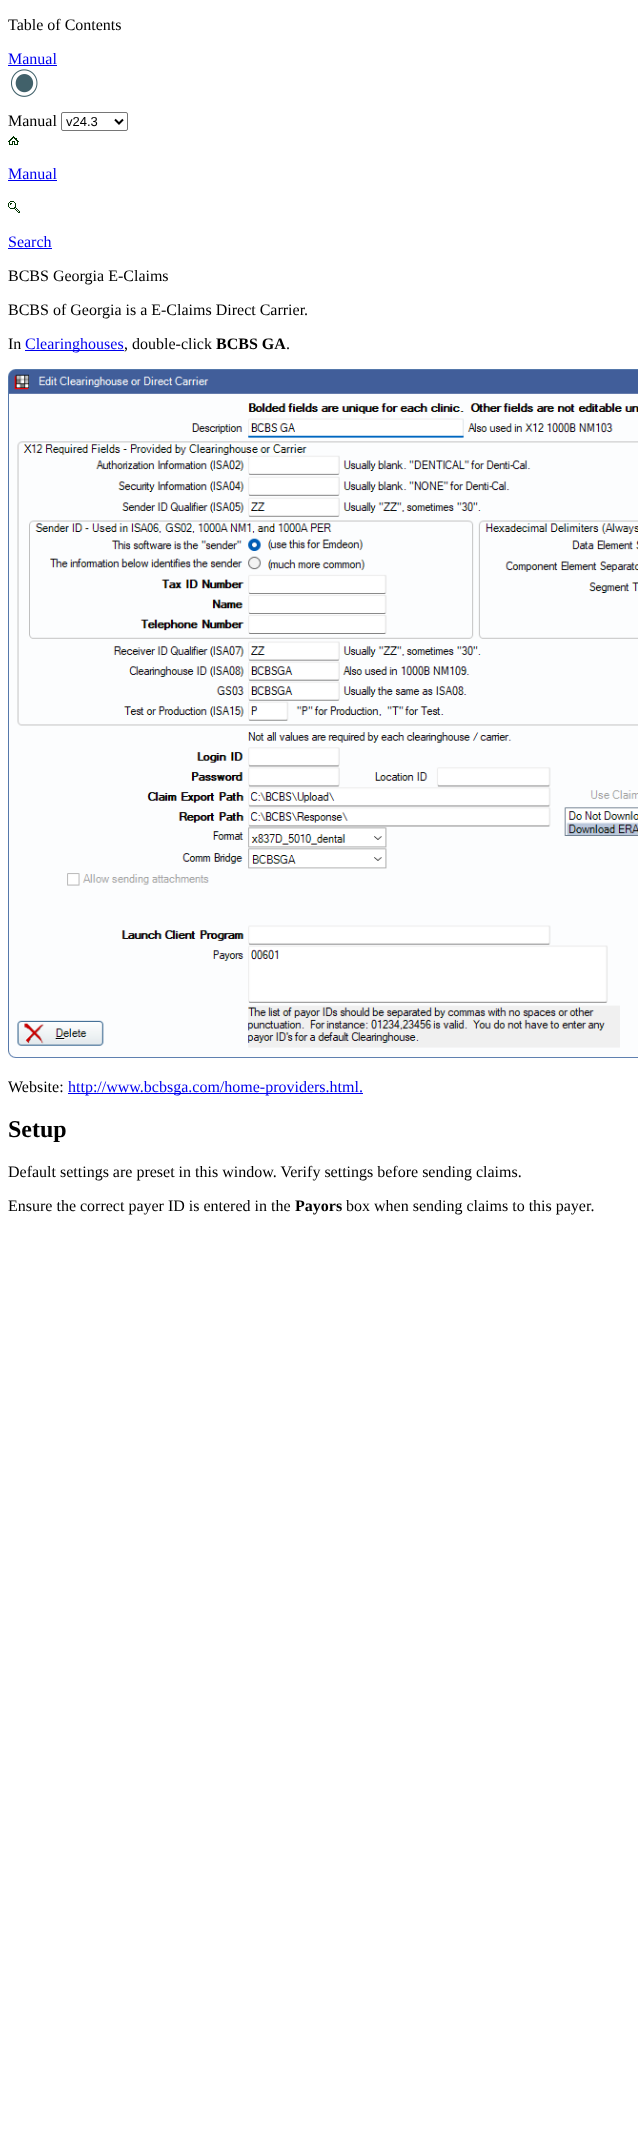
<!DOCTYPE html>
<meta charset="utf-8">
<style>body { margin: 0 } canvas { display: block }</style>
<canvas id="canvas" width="638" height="2137"></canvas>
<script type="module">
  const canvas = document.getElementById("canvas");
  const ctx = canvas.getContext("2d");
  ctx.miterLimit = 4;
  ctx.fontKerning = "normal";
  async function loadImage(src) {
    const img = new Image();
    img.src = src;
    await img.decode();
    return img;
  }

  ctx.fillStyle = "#ffffff";
  ctx.fillRect(0, 0, 638, 2137);
  ctx.font = "16px Liberation Serif";
  ctx.fillStyle = "#000000";
  ctx.fillText("Table of Contents", 8, 30);
  ctx.fillStyle = "#0000ee";
  ctx.fillText("Manual", 8, 64);
  ctx.fillRect(8, 65, 49, 1);
  ctx.drawImage(await loadImage("img1.png"), 11, 69, 27, 28);
  ctx.fillStyle = "#000000";
  ctx.fillText("Manual", 8, 126);
  ctx.beginPath();
  ctx.roundRect(61.5, 112.5, 66, 18, 1.5);
  ctx.strokeStyle = "#767676";
  ctx.stroke();
  ctx.beginPath();
  ctx.moveTo(115, 119.5);
  ctx.lineTo(119, 123.5);
  ctx.lineTo(123, 119.5);
  ctx.strokeStyle = "#000000";
  ctx.lineWidth = 2;
  ctx.stroke();
  ctx.font = "13px Liberation Sans";
  ctx.fillText("v24.3", 66, 126);
  ctx.drawImage(await loadImage("img2.png"), 8, 136, 11, 9);
  ctx.font = "16px Liberation Serif";
  ctx.fillStyle = "#0000ee";
  ctx.fillText("Manual", 8, 179);
  ctx.fillRect(8, 180, 49, 1);
  ctx.drawImage(await loadImage("img3.png"), 8, 201, 12, 12);
  ctx.fillText("Search", 8, 247);
  ctx.fillRect(8, 248, 44, 1);
  ctx.fillStyle = "#000000";
  ctx.fillText("BCBS Georgia E-Claims", 8, 281);
  ctx.fillText("BCBS of Georgia is a E-Claims Direct Carrier.", 8, 315);
  ctx.fillText("In", 8, 349);
  ctx.fillStyle = "#0000ee";
  ctx.fillRect(25, 350, 99, 1);
  ctx.fillText("Clearinghouses", 25, 349);
  ctx.fillStyle = "#000000";
  ctx.fillText(", double-click", 124, 349);
  ctx.font = "bold 16px Liberation Serif";
  ctx.fillText("BCBS GA", 216, 349);
  ctx.font = "16px Liberation Serif";
  ctx.fillText(".", 286, 349);
  ctx.drawImage(await loadImage("img4.png"), 8, 369, 630, 689);
  ctx.fillText("Website:", 8, 1092);
  ctx.fillStyle = "#0000ee";
  ctx.fillRect(68, 1093, 295, 1);
  ctx.fillText("http://www.bcbsga.com/home-providers.html.", 68, 1092);
  ctx.font = "bold 24px Liberation Serif";
  ctx.fillStyle = "#000000";
  ctx.fillText("Setup", 8, 1137);
  ctx.font = "16px Liberation Serif";
  ctx.fillText("Default settings are preset in this window. Verify settings before sending claims.", 8, 1177);
  ctx.fillText("Ensure the correct payer ID is entered in the", 8, 1211);
  ctx.font = "bold 16px Liberation Serif";
  ctx.fillText("Payors", 295, 1211);
  ctx.font = "16px Liberation Serif";
  ctx.fillText("box when sending claims to this payer.", 346, 1211);
</script>
